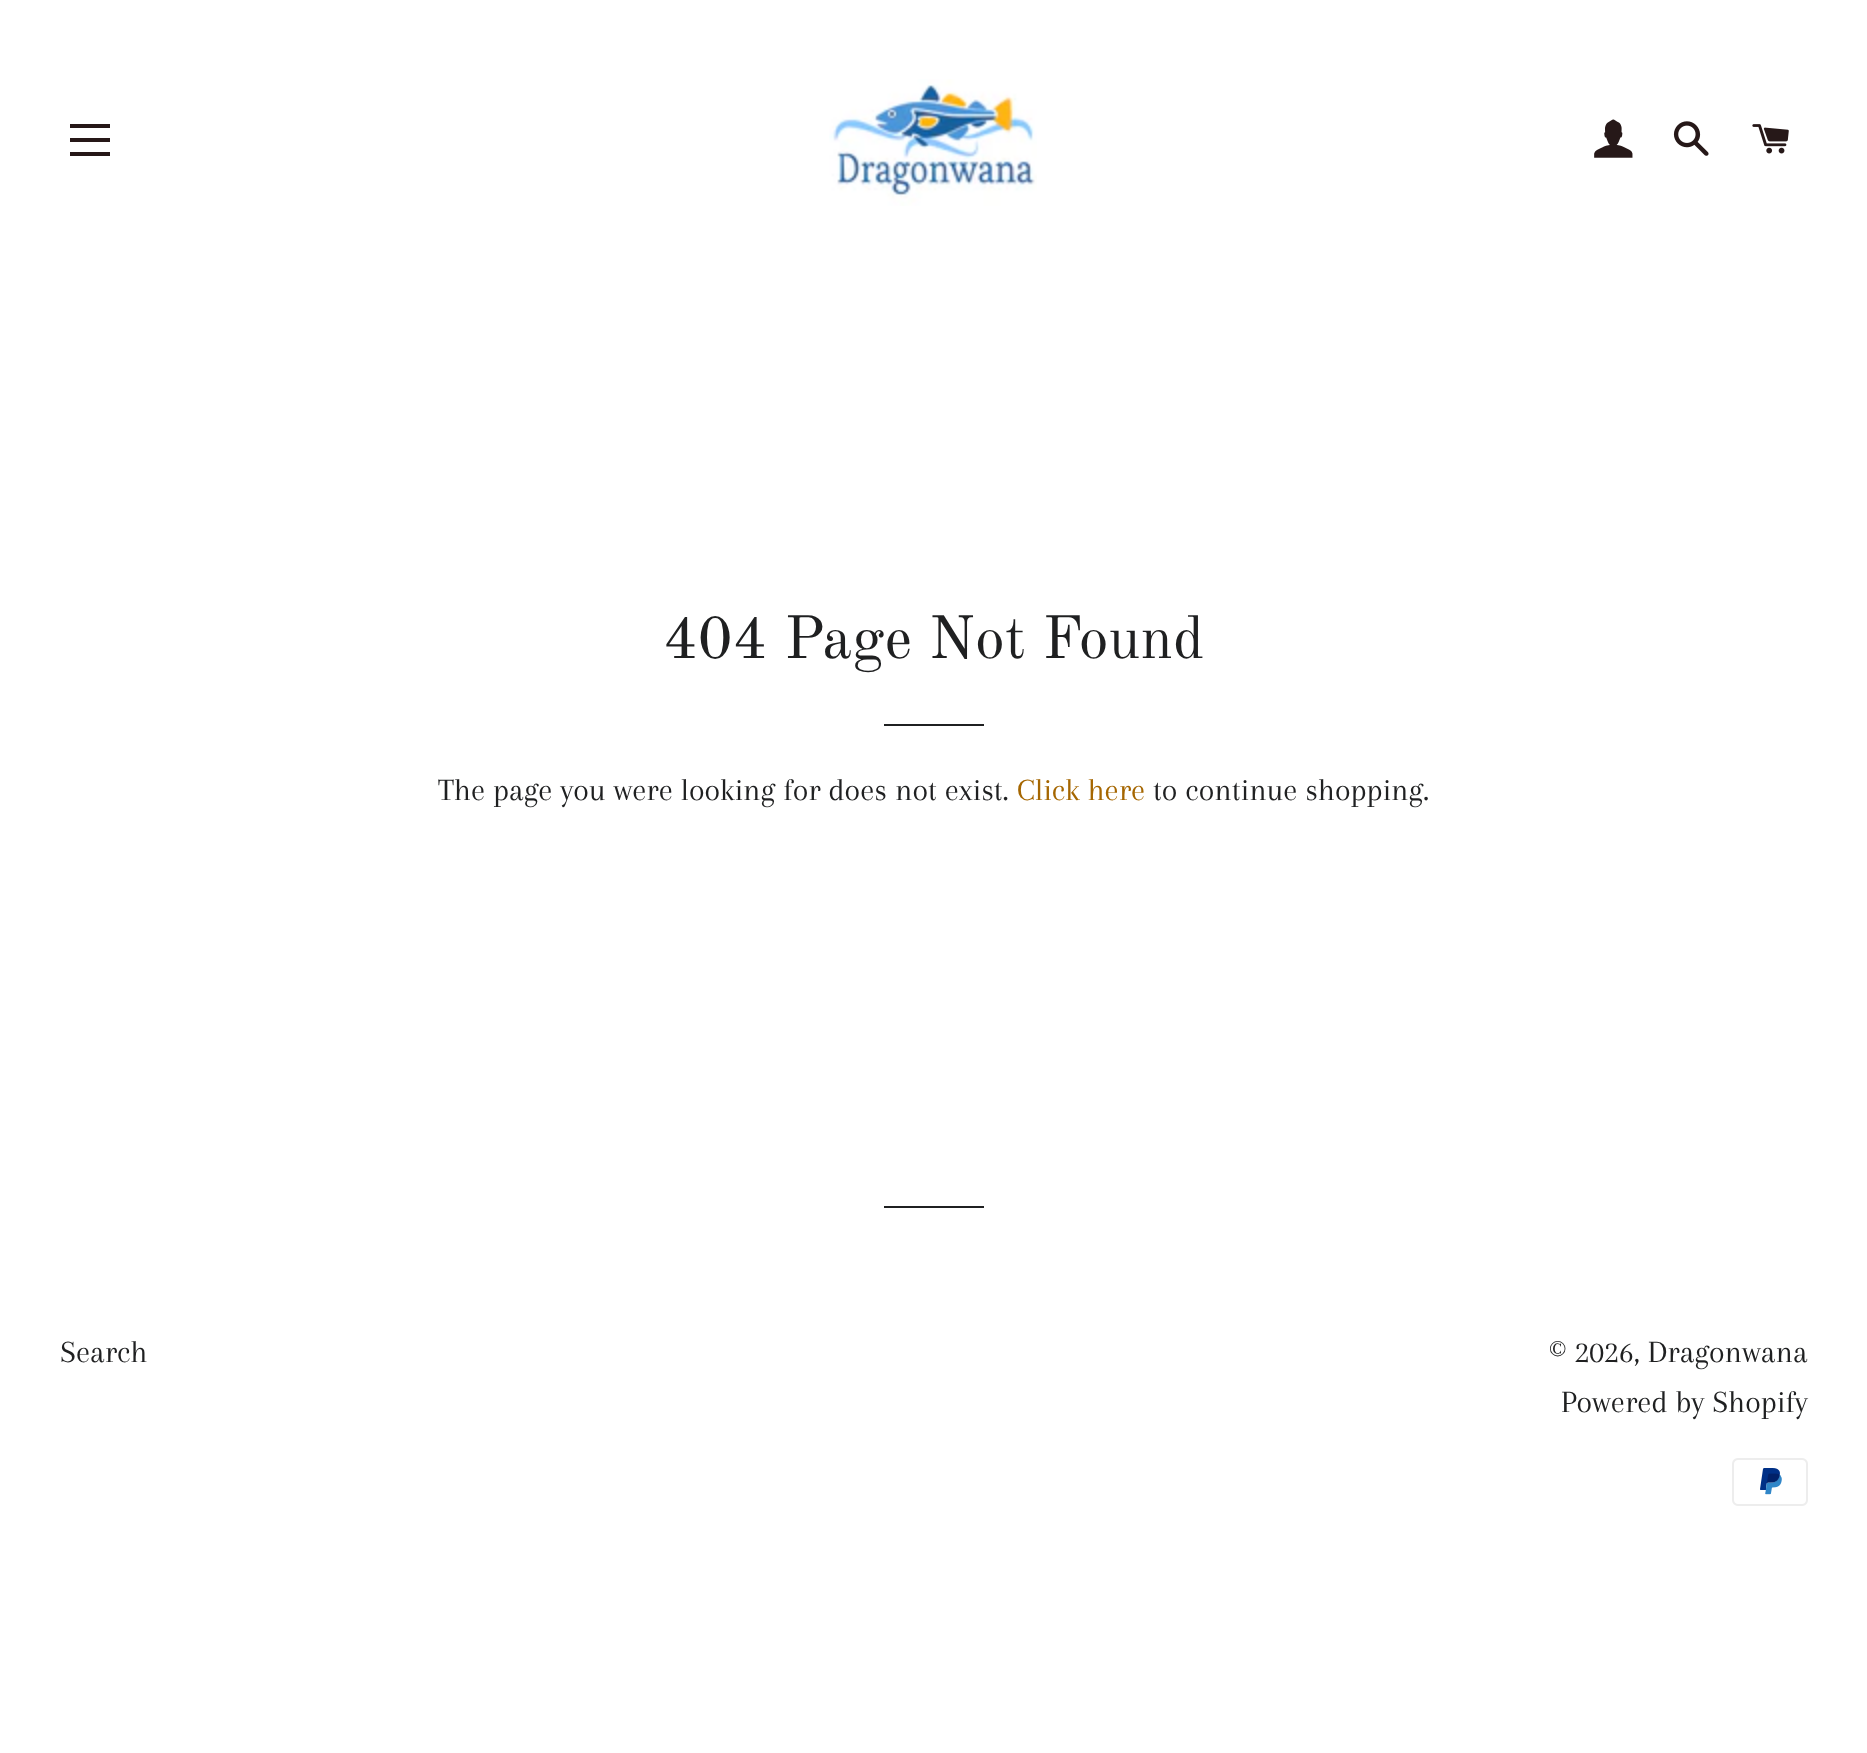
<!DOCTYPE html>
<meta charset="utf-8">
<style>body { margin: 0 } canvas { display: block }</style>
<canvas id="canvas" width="1867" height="1753"></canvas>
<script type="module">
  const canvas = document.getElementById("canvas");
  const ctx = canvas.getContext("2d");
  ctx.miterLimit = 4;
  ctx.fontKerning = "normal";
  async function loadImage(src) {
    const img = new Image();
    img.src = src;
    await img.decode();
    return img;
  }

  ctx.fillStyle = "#ffffff";
  ctx.fillRect(0, 0, 1867, 1753);
  ctx.fillStyle = "#261818";
  ctx.fillRect(70, 124, 40, 4);
  ctx.fillRect(70, 138, 40, 4);
  ctx.fillRect(70, 152, 40, 4);
  ctx.drawImage(await loadImage("img1.png"), 829, 79, 208, 127);
  ctx.drawImage(await loadImage("img2.png"), 1594, 119, 39, 39);
  ctx.drawImage(await loadImage("img3.png"), 1673, 121, 36, 35);
  ctx.drawImage(await loadImage("img4.png"), 1752, 124, 37, 30);
  ctx.font = "60px Old Standard TT";
  ctx.fillStyle = "#1f2021";
  ctx.fillText("404 Page Not Found", 663, 658);
  ctx.fillRect(884, 724, 100, 2);
  ctx.font = "32px Arapey";
  ctx.fillText("The page you were looking for does not exist.", 438, 800);
  ctx.fillStyle = "#a56600";
  ctx.fillText("Click here", 1017, 800);
  ctx.fillStyle = "#1f2021";
  ctx.fillText("to continue shopping.", 1153, 800);
  ctx.fillRect(884, 1206, 100, 2);
  ctx.fillText("Search", 60, 1362);
  ctx.fillText("© 2026, Dragonwana", 1549, 1362);
  ctx.fillText("Powered by Shopify", 1561, 1412);
  ctx.drawImage(await loadImage("img5.png"), 1732, 1458, 76, 48);
</script>
